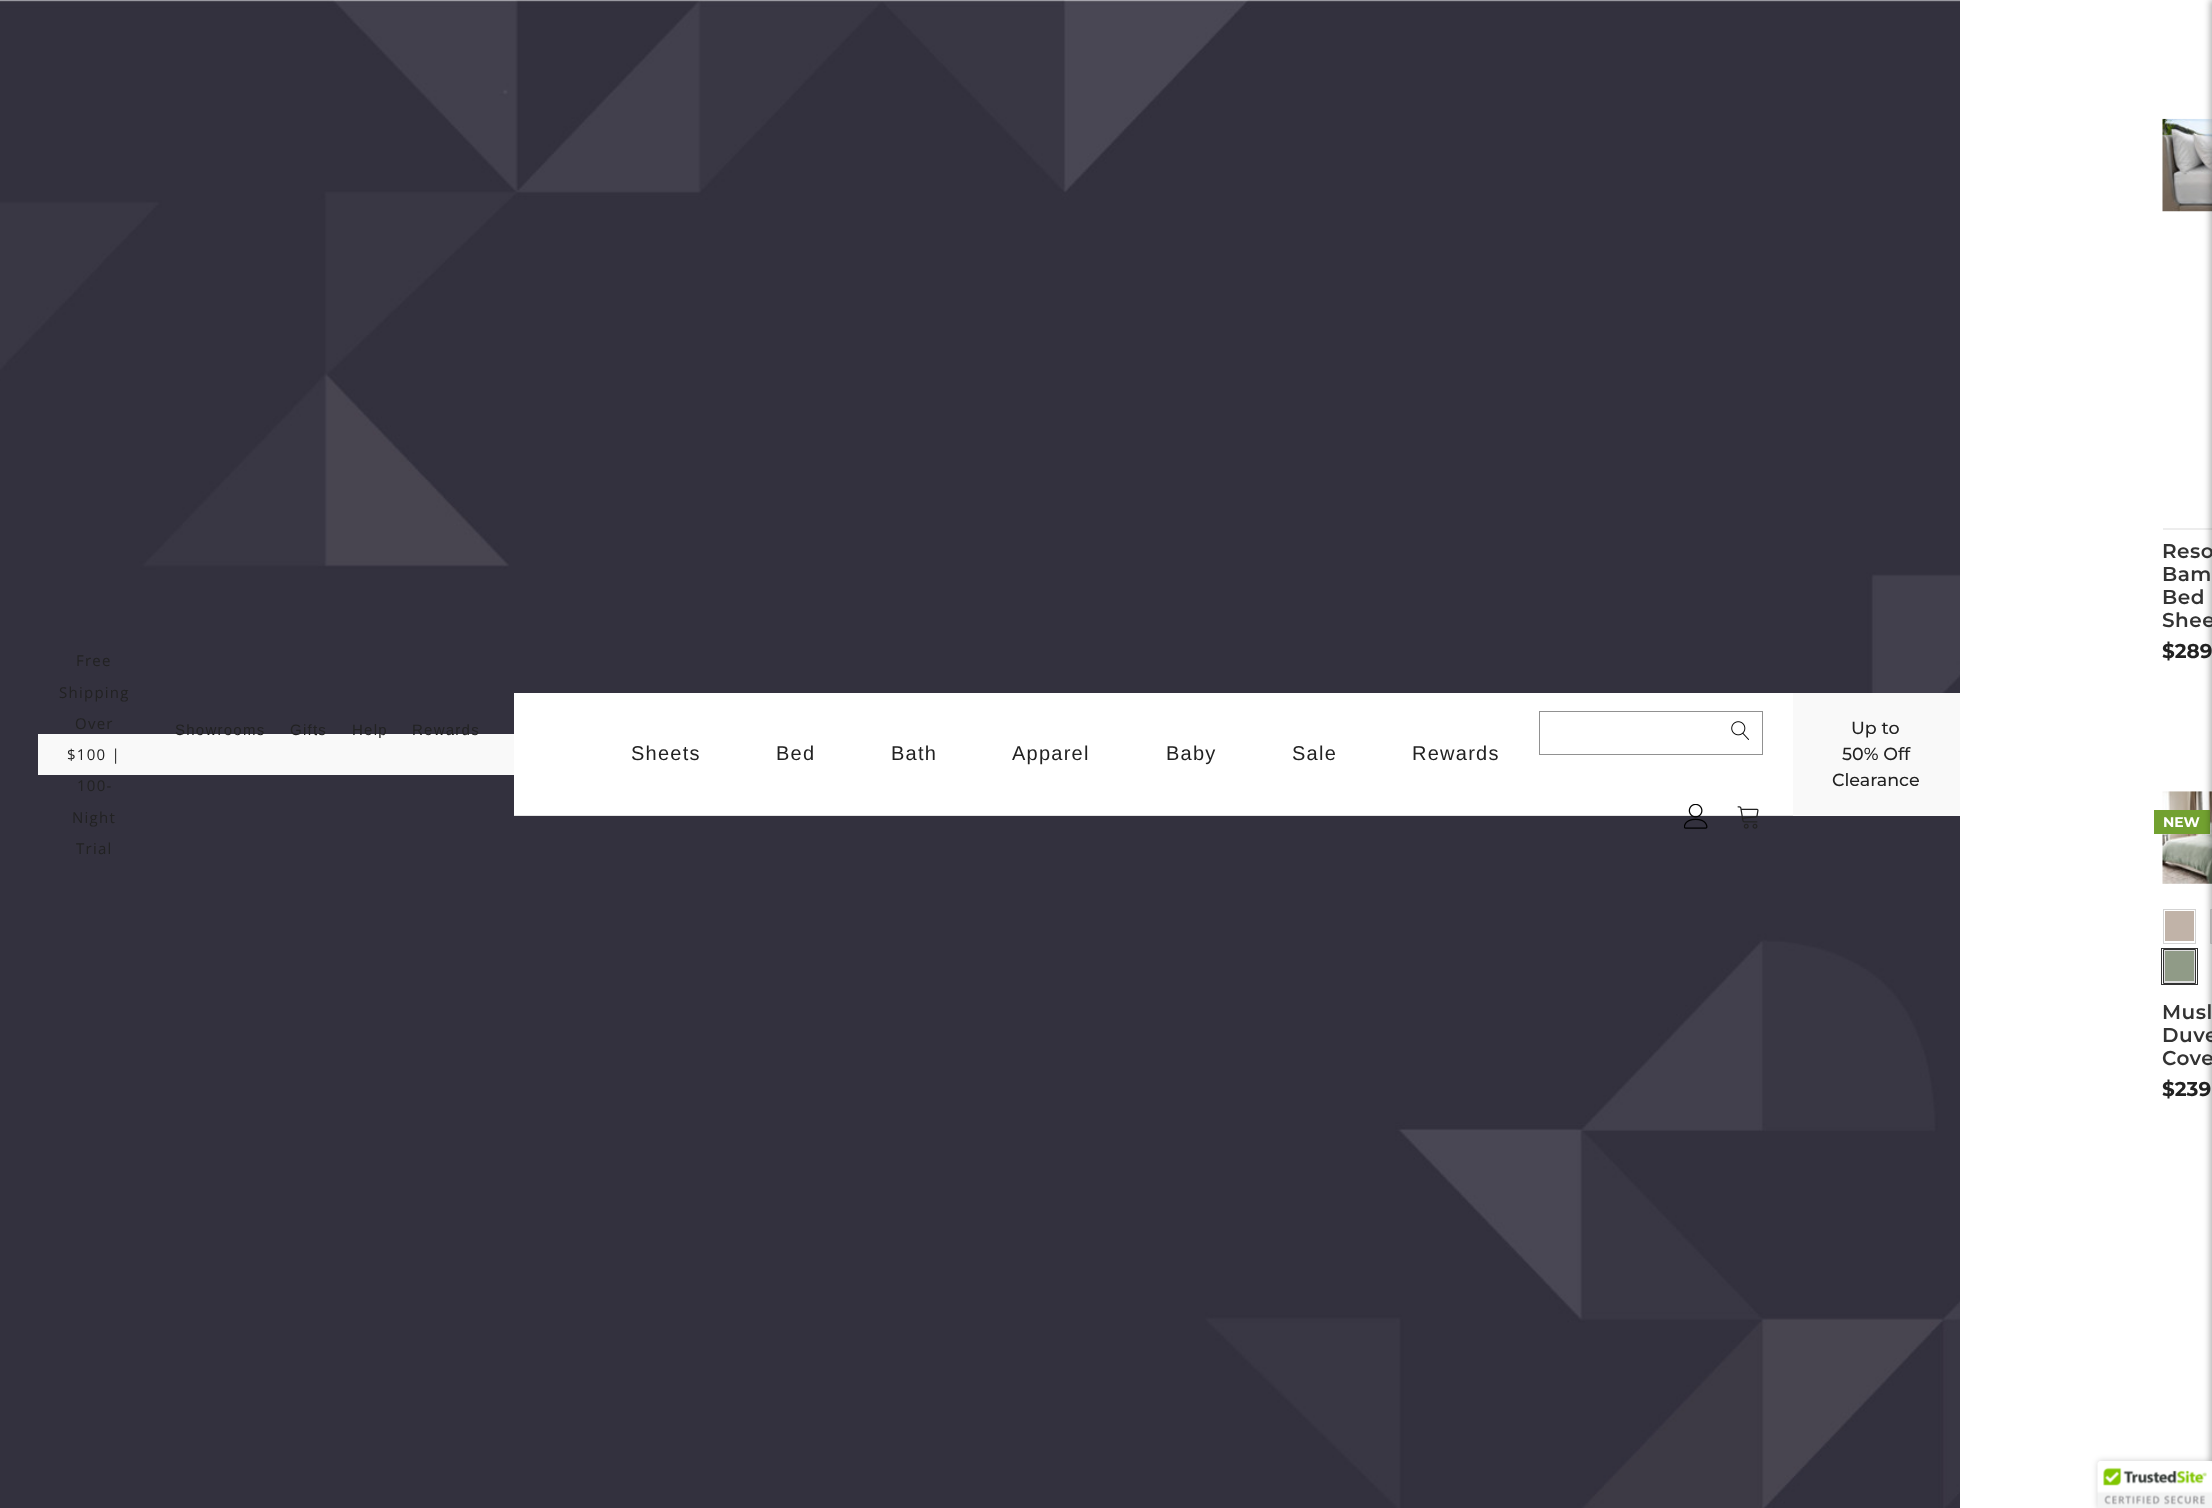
<!DOCTYPE html>
<meta charset="utf-8">
<style>body { margin: 0 } canvas { display: block }</style>
<canvas id="canvas" width="2212" height="1508"></canvas>
<script type="module">
  const canvas = document.getElementById("canvas");
  const ctx = canvas.getContext("2d");
  ctx.miterLimit = 4;
  ctx.fontKerning = "normal";
  async function loadImage(src) {
    const img = new Image();
    img.src = src;
    await img.decode();
    return img;
  }

  ctx.fillStyle = "#ffffff";
  ctx.fillRect(0, 0, 2212, 1508);
  ctx.drawImage(await loadImage("img1.png"), 0, 0, 1960, 1508);
  ctx.drawImage(await loadImage("img5.png"), 2162, 118, 50, 94);
  ctx.fillStyle = "#ededed";
  ctx.beginPath();
  ctx.moveTo(2163, 528);
  ctx.lineTo(2163, 530);
  ctx.lineTo(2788, 530);
  ctx.lineTo(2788, 239);
  ctx.lineTo(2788, 528);
  ctx.closePath();
  ctx.fill();
  ctx.drawImage(await loadImage("img6.png"), 2162, 791, 50, 93);
  ctx.fillStyle = "#72a130";
  ctx.fillRect(2154, 810, 56, 24);
  ctx.fillStyle = "#dddddd";
  ctx.beginPath();
  ctx.rect(2210.5, 909.5, 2, 34);
  ctx.fill();
  ctx.strokeStyle = "#d3d3d3";
  ctx.stroke();
  ctx.fillStyle = "rgba(0, 0, 0, 0.3)";
  ctx.filter = "blur(3px)";
  ctx.beginPath();
  ctx.rect(2210, 0, 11, 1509);
  ctx.fill();
  ctx.filter = "none";
  ctx.fillStyle = "#f9f9f9";
  ctx.fillRect(38, 734, 476, 41);
  ctx.letterSpacing = "1.25px";
  ctx.font = "15px Open Sans";
  ctx.fillStyle = "#222222";
  ctx.fillText("Free", 76, 666);
  ctx.fillText("Shipping", 59, 698);
  ctx.fillText("Over", 75, 729);
  ctx.fillText("$100 |", 67, 760);
  ctx.fillText("100-", 77, 791);
  ctx.fillText("Night", 72, 823);
  ctx.fillText("Trial", 76, 854);
  ctx.font = "15px Liberation Sans";
  ctx.fillText("Showrooms", 175, 735);
  ctx.fillText("Gifts", 290, 735);
  ctx.fillText("Help", 352, 735);
  ctx.fillText("Rewards", 412, 735);
  ctx.fillStyle = "#ffffff";
  ctx.fillRect(514, 693, 1279, 122);
  ctx.fillStyle = "#e5e5e5";
  ctx.fillRect(514, 815, 1279, 1);
  ctx.font = "20px Liberation Sans";
  ctx.fillStyle = "#222222";
  ctx.fillText("Sheets", 631, 760);
  ctx.fillText("Bed", 776, 760);
  ctx.fillText("Bath", 891, 760);
  ctx.fillText("Apparel", 1012, 760);
  ctx.fillText("Baby", 1166, 760);
  ctx.fillText("Sale", 1292, 760);
  ctx.fillText("Rewards", 1412, 760);
  ctx.strokeStyle = "#919191";
  ctx.strokeRect(1539.5, 711.5, 223, 43);
  ctx.drawImage(await loadImage("img2.png"), 1731, 721, 18, 19);
  ctx.drawImage(await loadImage("img3.png"), 1684, 804, 24, 25);
  ctx.drawImage(await loadImage("img4.png"), 1737, 806, 22, 23);
  ctx.fillStyle = "#f9f9f9";
  ctx.fillRect(1793, 693, 167, 123);
  ctx.letterSpacing = "0px";
  ctx.font = "500 17.5px Montserrat";
  ctx.fillStyle = "#222222";
  ctx.fillText("Up to", 1851, 734);
  ctx.fillText("50% Off", 1842, 760);
  ctx.fillText("Clearance", 1832, 786);
  ctx.letterSpacing = "0.5px";
  ctx.font = "100 20px Montserrat";
  ctx.fillStyle = "#333333";
  ctx.fillText("Reso", 2162, 558);
  ctx.fillText("Bam", 2162, 581);
  ctx.fillText("Bed", 2162, 604);
  ctx.fillText("Shee", 2162, 627);
  ctx.letterSpacing = "0px";
  ctx.font = "bold 20px Montserrat";
  ctx.fillStyle = "#222222";
  ctx.fillText("$289", 2162, 658);
  ctx.font = "bold 14px Montserrat";
  ctx.fillStyle = "#ffffff";
  ctx.fillText("NEW", 2163, 827);
  ctx.strokeStyle = "#d3d3d3";
  ctx.strokeRect(2163.5, 909.5, 32, 34);
  ctx.fillStyle = "#c1b3a8";
  ctx.fillRect(2165, 911, 29, 30);
  ctx.strokeStyle = "#333333";
  ctx.strokeRect(2161.5, 948.5, 36, 36);
  ctx.fillStyle = "#dddddd";
  ctx.beginPath();
  ctx.rect(2163.5, 949.5, 32, 34);
  ctx.fill();
  ctx.stroke();
  ctx.fillStyle = "#909b87";
  ctx.fillRect(2165, 951, 29, 30);
  ctx.letterSpacing = "0.5px";
  ctx.font = "100 20px Montserrat";
  ctx.fillStyle = "#333333";
  ctx.fillText("Musl", 2162, 1019);
  ctx.fillText("Duve", 2162, 1042);
  ctx.fillText("Cove", 2162, 1065);
  ctx.letterSpacing = "0px";
  ctx.font = "bold 20px Montserrat";
  ctx.fillStyle = "#222222";
  ctx.fillText("$239", 2162, 1096);
  ctx.fillStyle = "rgba(0, 0, 0, 0.2)";
  ctx.filter = "blur(3px)";
  ctx.beginPath();
  ctx.roundRect(2098, 1461, 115, 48, 2.5);
  ctx.fill();
  ctx.filter = "none";
  ctx.fillStyle = "#ffffff";
  ctx.beginPath();
  ctx.moveTo(2100.5, 1461);
  ctx.lineTo(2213, 1461);
  ctx.lineTo(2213, 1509);
  ctx.lineTo(2098, 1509);
  ctx.lineTo(2098, 1463.5);
  ctx.bezierCurveTo(2098, 1462, 2099, 1461, 2100.5, 1461);
  ctx.closePath();
  ctx.fill();
  ctx.drawImage(await loadImage("img7.png"), 2097, 1461, 115, 47);
</script>
